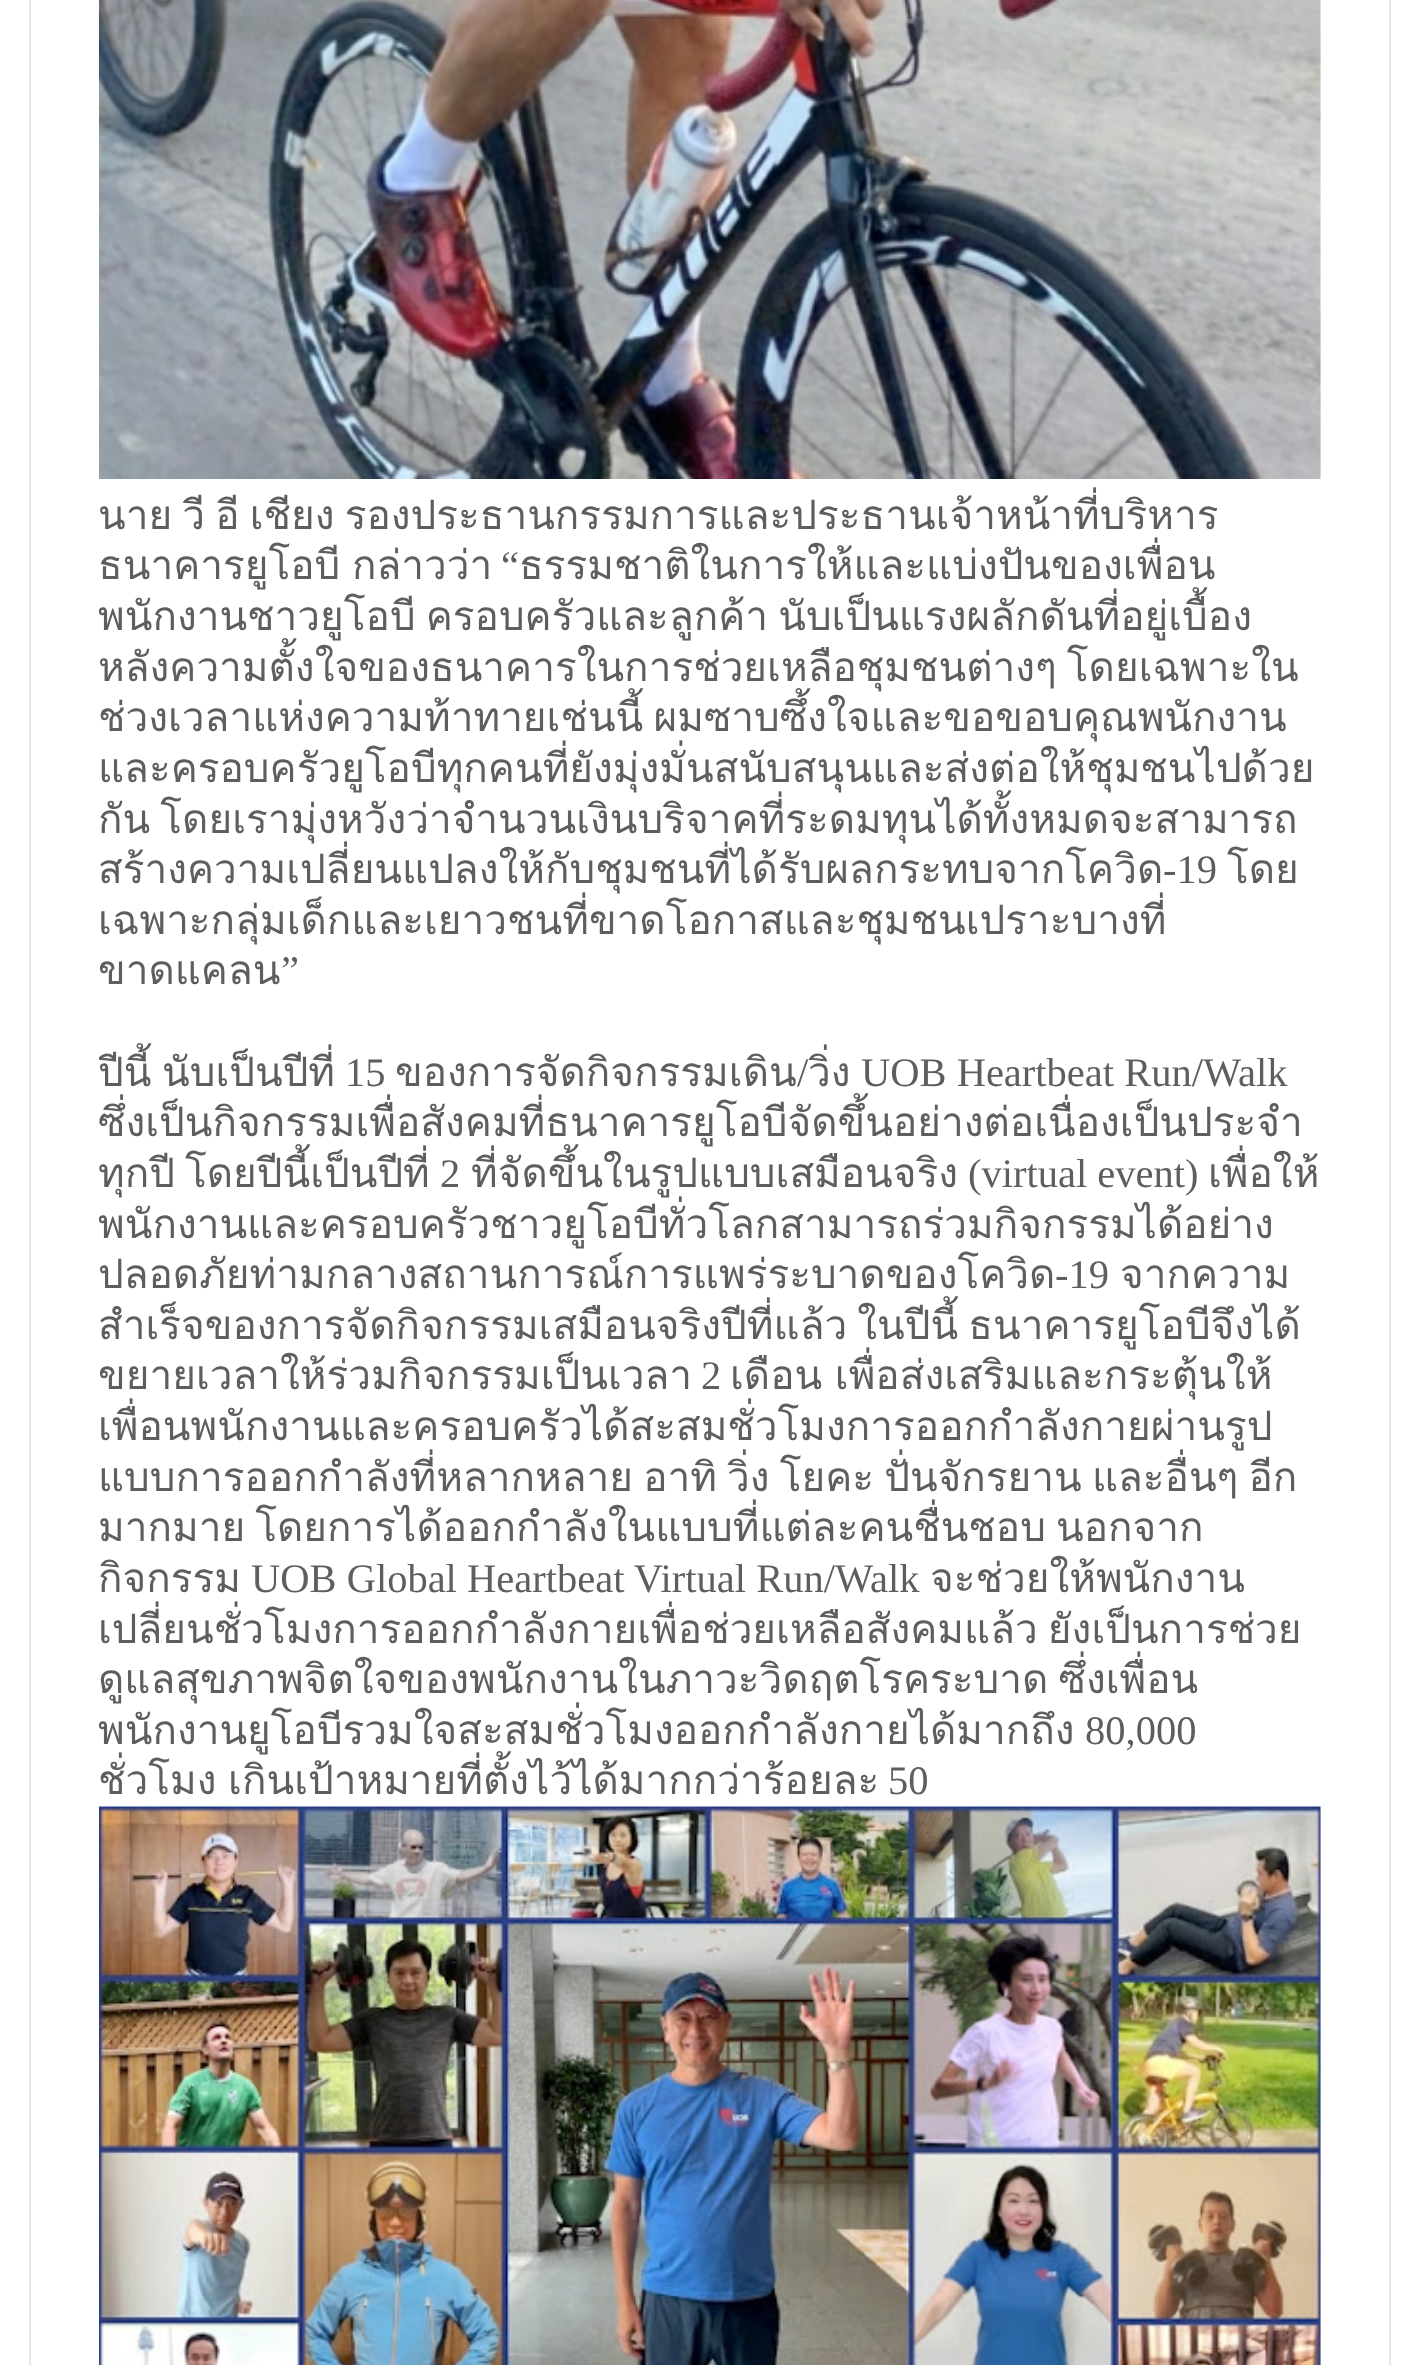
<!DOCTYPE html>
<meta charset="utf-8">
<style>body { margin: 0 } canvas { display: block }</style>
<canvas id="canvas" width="1419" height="2365"></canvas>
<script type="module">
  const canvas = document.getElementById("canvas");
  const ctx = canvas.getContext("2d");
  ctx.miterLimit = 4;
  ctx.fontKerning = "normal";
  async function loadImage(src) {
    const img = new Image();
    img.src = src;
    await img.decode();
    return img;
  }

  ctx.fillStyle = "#ffffff";
  ctx.fillRect(0, 0, 1419, 2365);
  ctx.strokeStyle = "#e6e6e6";
  ctx.lineWidth = 2;
  ctx.strokeRect(30, -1, 1360, 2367);
  ctx.drawImage(await loadImage("img1.png"), 99, 0, 1222, 479);
  ctx.wordSpacing = "-3.5px";
  ctx.font = "40.5px Loma";
  ctx.fillStyle = "#5e5e5e";
  ctx.fillText("นาย วี อี เชียง รองประธานกรรมการและประธานเจ้าหน้าที่บริหาร", 98, 529);
  ctx.wordSpacing = "-2px";
  ctx.fillText("ธนาคารยูโอบี กล่าวว่า", 98, 579);
  ctx.wordSpacing = "0px";
  ctx.font = "40.5px Liberation Serif";
  ctx.fillText("“", 501, 579);
  ctx.font = "40.5px Loma";
  ctx.fillText("ธรรมชาติในการให้และแบ่งปันของเพื่อน", 519, 579);
  ctx.wordSpacing = "-3.5px";
  ctx.fillText("พนักงานชาวยูโอบี ครอบครัวและลูกค้า นับเป็นแรงผลักดันที่อยู่เบื้อง", 98, 630);
  ctx.fillText("หลังความตั้งใจของธนาคารในการช่วยเหลือชุมชนต่างๆ โดยเฉพาะใน", 98, 681);
  ctx.save();
  ctx.beginPath();
  ctx.rect(99, 0, 1222, 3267);
  ctx.clip();
  ctx.fillText("ช่วงเวลาแห่งความท้าทายเช่นนี้ ผมซาบซึ้งใจและขอขอบคุณพนักงาน", 98, 731);
  ctx.restore();
  ctx.wordSpacing = "0px";
  ctx.fillText("และครอบครัวยูโอบีทุกคนที่ยังมุ่งมั่นสนับสนุนและส่งต่อให้ชุมชนไปด้วย", 98, 782);
  ctx.save();
  ctx.beginPath();
  ctx.rect(99, 0, 1222, 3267);
  ctx.clip();
  ctx.wordSpacing = "-3.5px";
  ctx.fillText("กัน โดยเรามุ่งหวังว่าจำนวนเงินบริจาคที่ระดมทุนได้ทั้งหมดจะสามารถ", 98, 833);
  ctx.restore();
  ctx.fillText("สร้างความเปลี่ยนแปลงให้กับชุมชนที่ได้รับผลกระทบจากโควิด", 98, 883);
  ctx.font = "40.5px Liberation Serif";
  ctx.fillText("-19", 1163, 883);
  ctx.font = "40.5px Loma";
  ctx.fillText("โดย", 1227, 883);
  ctx.fillText("เฉพาะกลุ่มเด็กและเยาวชนที่ขาดโอกาสและชุมชนเปราะบางที่", 98, 934);
  ctx.fillText("ขาดแคลน", 98, 984);
  ctx.font = "40.5px Liberation Serif";
  ctx.fillText("”", 281, 984);
  ctx.save();
  ctx.beginPath();
  ctx.rect(99, 0, 1222, 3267);
  ctx.clip();
  ctx.font = "40.5px Loma";
  ctx.fillText("ปีนี้", 98, 1086);
  ctx.restore();
  ctx.font = "40.5px Loma";
  ctx.fillText("นับเป็นปีที่", 162, 1086);
  ctx.font = "40.5px Liberation Serif";
  ctx.fillText("15", 345, 1086);
  ctx.font = "40.5px Loma";
  ctx.fillText("ของการจัดกิจกรรมเดิน", 395, 1086);
  ctx.font = "40.5px Liberation Serif";
  ctx.fillText("/", 797, 1086);
  ctx.font = "40.5px Loma";
  ctx.fillText("วิ่ง", 808, 1086);
  ctx.font = "40.5px Liberation Serif";
  ctx.fillText("UOB Heartbeat Run/Walk", 861, 1086);
  ctx.save();
  ctx.beginPath();
  ctx.rect(99, 0, 1222, 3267);
  ctx.clip();
  ctx.font = "40.5px Loma";
  ctx.fillText("ซึ่งเป็นกิจกรรมเพื่อสังคมที่ธนาคารยูโอบีจัดขึ้นอย่างต่อเนื่องเป็นประจำ", 98, 1136);
  ctx.fillText("ทุกปี", 98, 1187);
  ctx.restore();
  ctx.font = "40.5px Loma";
  ctx.fillText("โดยปีนี้เป็นปีที่", 185, 1187);
  ctx.font = "40.5px Liberation Serif";
  ctx.fillText("2", 440, 1187);
  ctx.font = "40.5px Loma";
  ctx.fillText("ที่จัดขึ้นในรูปแบบเสมือนจริง", 471, 1187);
  ctx.font = "40.5px Liberation Serif";
  ctx.fillText("(virtual event)", 968, 1187);
  ctx.font = "40.5px Loma";
  ctx.fillText("เพื่อให้", 1208, 1187);
  ctx.fillText("พนักงานและครอบครัวชาวยูโอบีทั่วโลกสามารถร่วมกิจกรรมได้อย่าง", 98, 1238);
  ctx.fillText("ปลอดภัยท่ามกลางสถานการณ์การแพร่ระบาดของโควิด", 98, 1288);
  ctx.font = "40.5px Liberation Serif";
  ctx.fillText("-19", 1055, 1288);
  ctx.font = "40.5px Loma";
  ctx.fillText("จากความ", 1120, 1288);
  ctx.save();
  ctx.beginPath();
  ctx.rect(99, 0, 1222, 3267);
  ctx.clip();
  ctx.wordSpacing = "-3.5px";
  ctx.fillText("สำเร็จของการจัดกิจกรรมเสมือนจริงปีที่แล้ว ในปีนี้ ธนาคารยูโอบีจึงได้", 98, 1339);
  ctx.restore();
  ctx.fillText("ขยายเวลาให้ร่วมกิจกรรมเป็นเวลา", 98, 1389);
  ctx.font = "40.5px Liberation Serif";
  ctx.fillText("2", 701, 1389);
  ctx.wordSpacing = "-1px";
  ctx.font = "40.5px Loma";
  ctx.fillText("เดือน เพื่อส่งเสริมและกระตุ้นให้", 730, 1389);
  ctx.save();
  ctx.beginPath();
  ctx.rect(99, 0, 1222, 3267);
  ctx.clip();
  ctx.wordSpacing = "0px";
  ctx.fillText("เพื่อนพนักงานและครอบครัวได้สะสมชั่วโมงการออกกำลังกายผ่านรูป", 98, 1440);
  ctx.restore();
  ctx.wordSpacing = "-3.5px";
  ctx.fillText("แบบการออกกำลังที่หลากหลาย อาทิ วิ่ง โยคะ ปั่นจักรยาน และอื่นๆ อีก", 98, 1491);
  ctx.fillText("มากมาย โดยการได้ออกกำลังในแบบที่แต่ละคนชื่นชอบ นอกจาก", 98, 1541);
  ctx.save();
  ctx.beginPath();
  ctx.rect(99, 0, 1222, 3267);
  ctx.clip();
  ctx.wordSpacing = "0px";
  ctx.fillText("กิจกรรม", 98, 1592);
  ctx.restore();
  ctx.wordSpacing = "0px";
  ctx.font = "40.5px Liberation Serif";
  ctx.fillText("UOB Global Heartbeat Virtual Run/Walk", 251, 1592);
  ctx.font = "40.5px Loma";
  ctx.fillText("จะช่วยให้พนักงาน", 930, 1592);
  ctx.wordSpacing = "-3.5px";
  ctx.fillText("เปลี่ยนชั่วโมงการออกกำลังกายเพื่อช่วยเหลือสังคมแล้ว ยังเป็นการช่วย", 98, 1643);
  ctx.save();
  ctx.beginPath();
  ctx.rect(99, 0, 1222, 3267);
  ctx.clip();
  ctx.fillText("ดูแลสุขภาพจิตใจของพนักงานในภาวะวิดฤตโรคระบาด ซึ่งเพื่อน", 98, 1693);
  ctx.restore();
  ctx.wordSpacing = "0px";
  ctx.fillText("พนักงานยูโอบีรวมใจสะสมชั่วโมงออกกำลังกายได้มากถึง", 98, 1744);
  ctx.font = "40.5px Liberation Serif";
  ctx.fillText("80,000", 1085, 1744);
  ctx.save();
  ctx.beginPath();
  ctx.rect(99, 0, 1222, 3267);
  ctx.clip();
  ctx.wordSpacing = "-2px";
  ctx.font = "40.5px Loma";
  ctx.fillText("ชั่วโมง เกินเป้าหมายที่ตั้งไว้ได้มากกว่าร้อยละ", 98, 1794);
  ctx.restore();
  ctx.fillText("50", 888, 1794);
  ctx.drawImage(await loadImage("img2.png"), 99, 1806, 1222, 559);
</script>
